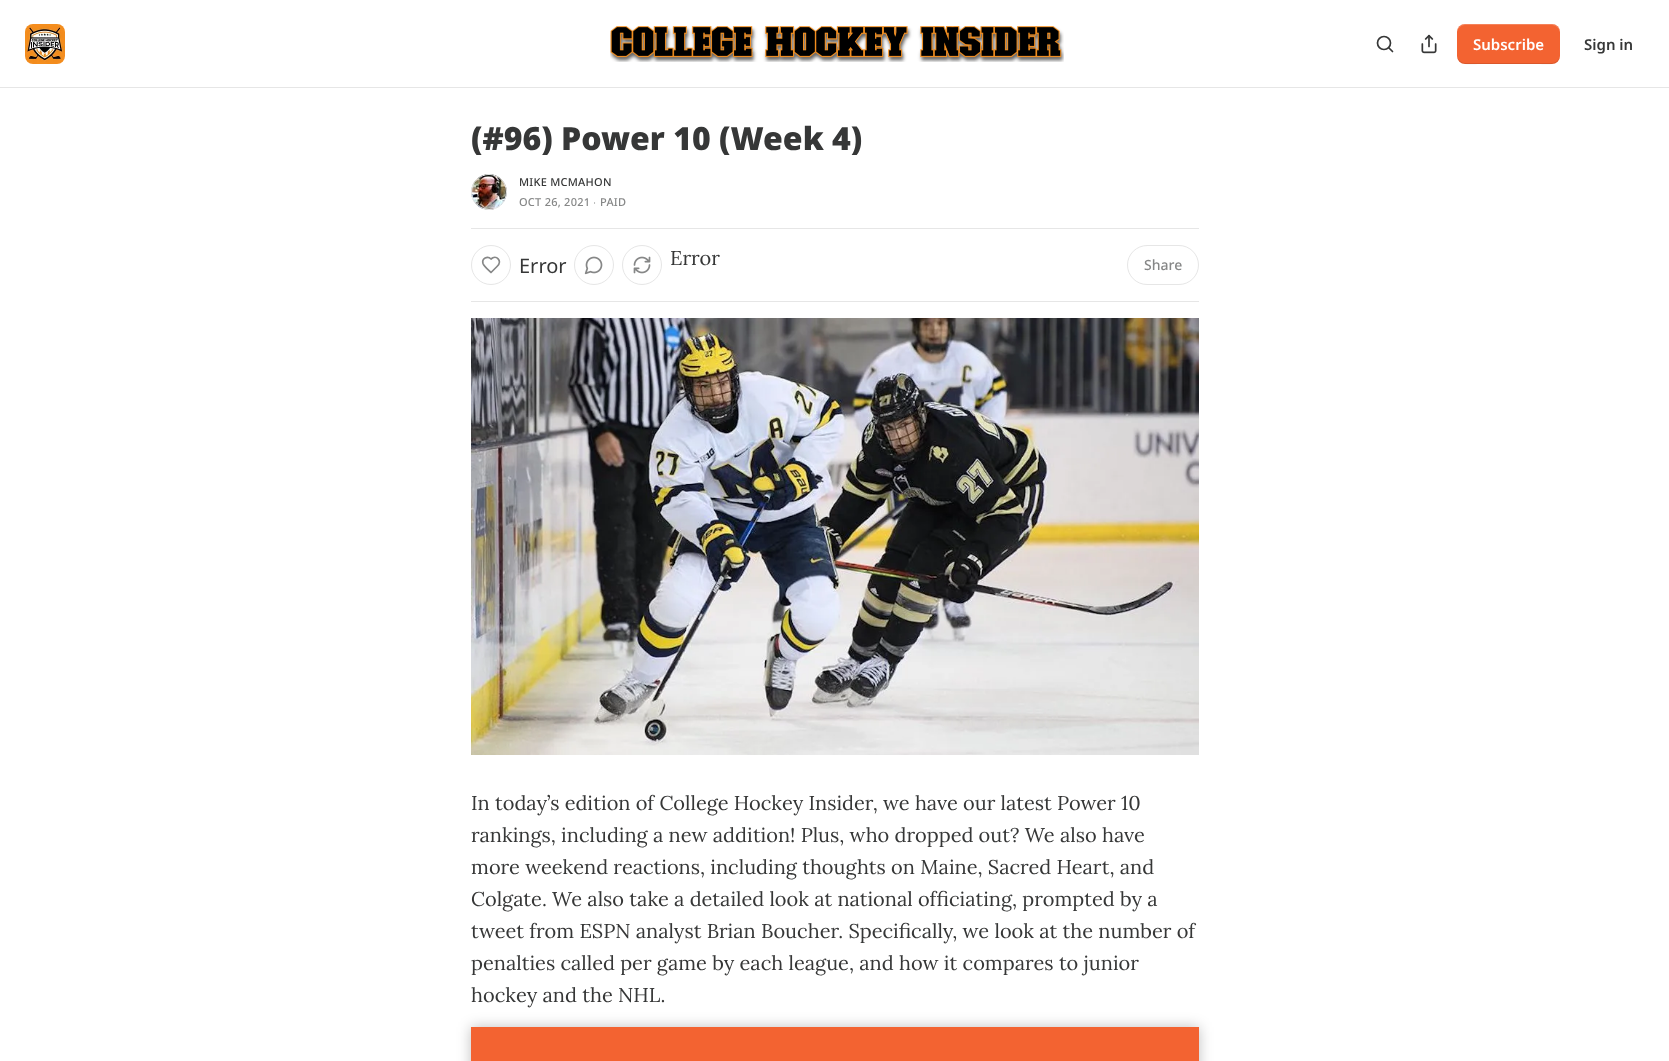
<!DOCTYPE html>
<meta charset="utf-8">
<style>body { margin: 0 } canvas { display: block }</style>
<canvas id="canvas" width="1669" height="1061"></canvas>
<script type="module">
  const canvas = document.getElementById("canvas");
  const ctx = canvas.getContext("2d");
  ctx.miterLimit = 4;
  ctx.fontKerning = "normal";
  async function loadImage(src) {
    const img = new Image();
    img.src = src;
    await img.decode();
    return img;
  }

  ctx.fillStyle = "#ffffff";
  ctx.fillRect(0, 0, 1669, 1061);
  ctx.fillStyle = "#e6e6e6";
  ctx.fillRect(0, 87, 1669, 1);
  ctx.drawImage(await loadImage("img1.png"), 25, 24, 40, 40);
  ctx.drawImage(await loadImage("img2.png"), 610, 26, 454, 36);
  ctx.beginPath();
  ctx.arc(1384, 43, 6.5, 0, Math.PI * 2);
  ctx.strokeStyle = "#363737";
  ctx.lineWidth = 1.7;
  ctx.stroke();
  ctx.beginPath();
  ctx.moveTo(1392.5, 51.5);
  ctx.lineTo(1389, 48);
  ctx.lineCap = "round";
  ctx.lineJoin = "round";
  ctx.stroke();
  ctx.drawImage(await loadImage("img3.png"), 1421, 34, 16, 20);
  ctx.fillStyle = "#f36331";
  ctx.beginPath();
  ctx.roundRect(1457, 24, 103, 40, 8);
  ctx.fill();
  ctx.fillStyle = "rgba(0, 0, 0, 0.1)";
  ctx.beginPath();
  ctx.moveTo(1457, 55);
  ctx.bezierCurveTo(1457, 67, 1471, 64, 1480, 64);
  ctx.lineTo(1538, 64);
  ctx.bezierCurveTo(1546, 64, 1560, 67, 1560, 55);
  ctx.bezierCurveTo(1560, 59, 1556, 63, 1552, 63);
  ctx.lineTo(1465, 63);
  ctx.bezierCurveTo(1461, 63, 1457, 59, 1457, 55);
  ctx.closePath();
  ctx.fill();
  ctx.fillStyle = "rgba(255, 255, 255, 0.2)";
  ctx.beginPath();
  ctx.moveTo(1465, 25);
  ctx.lineTo(1552, 25);
  ctx.bezierCurveTo(1556, 25, 1560, 29, 1560, 33);
  ctx.bezierCurveTo(1560, 21, 1546, 24, 1538, 24);
  ctx.lineTo(1480, 24);
  ctx.bezierCurveTo(1471, 24, 1457, 21, 1457, 33);
  ctx.bezierCurveTo(1457, 29, 1461, 25, 1465, 25);
  ctx.closePath();
  ctx.fill();
  ctx.font = "600 15px Noto Sans";
  ctx.fillStyle = "#ffffff";
  ctx.fillText("Subscribe", 1473, 50);
  ctx.fillStyle = "#363737";
  ctx.fillText("Sign in", 1584, 50);
  ctx.font = "900 32px Noto Sans";
  ctx.fillText("(#96) Power 10 (Week 4)", 471, 150);
  ctx.beginPath();
  ctx.arc(489, 192, 17.5, 0, Math.PI * 2);
  ctx.strokeStyle = "#e6e6e6";
  ctx.lineWidth = 1;
  ctx.stroke();
  ctx.drawImage(await loadImage("img4.png"), 471, 174, 36, 36);
  ctx.beginPath();
  ctx.arc(489, 192, 17.5, 0, Math.PI * 2);
  ctx.stroke();
  ctx.letterSpacing = "0.25px";
  ctx.font = "500 11px Noto Sans";
  ctx.fillText("MIKE MCMAHON", 519, 186);
  ctx.fillStyle = "#868787";
  ctx.fillText("OCT 26, 2021", 519, 206);
  ctx.font = "11px Liberation Sans";
  ctx.fillText("∙", 593, 206);
  ctx.font = "500 11px Noto Sans";
  ctx.fillText("PAID", 600, 206);
  ctx.fillStyle = "#e6e6e6";
  ctx.fillRect(471, 228, 728, 1);
  ctx.fillRect(471, 301, 728, 1);
  ctx.beginPath();
  ctx.arc(491, 265, 19.5, 0, Math.PI * 2);
  ctx.stroke();
  ctx.beginPath();
  ctx.moveTo(497, 266.5);
  ctx.bezierCurveTo(503, 260.5, 496, 254.5, 491, 259);
  ctx.bezierCurveTo(487.5, 255.5, 481.5, 258.5, 483, 263.5);
  ctx.bezierCurveTo(484, 266.5, 489, 270.5, 491, 272.5);
  ctx.closePath();
  ctx.strokeStyle = "#868787";
  ctx.lineWidth = 1.7;
  ctx.stroke();
  ctx.letterSpacing = "0px";
  ctx.font = "20px Noto Sans";
  ctx.fillStyle = "#363737";
  ctx.fillText("Error", 519, 273);
  ctx.beginPath();
  ctx.arc(594, 265, 19.5, 0, Math.PI * 2);
  ctx.strokeStyle = "#e6e6e6";
  ctx.lineWidth = 1;
  ctx.stroke();
  ctx.drawImage(await loadImage("img5.png"), 584, 256, 19, 19);
  ctx.beginPath();
  ctx.arc(642, 265, 19.5, 0, Math.PI * 2);
  ctx.stroke();
  ctx.drawImage(await loadImage("img6.png"), 633, 256, 18, 18);
  ctx.font = "20px Lora";
  ctx.fillText("Error", 670, 265);
  ctx.beginPath();
  ctx.roundRect(1127.5, 245.5, 71, 39, 19.5);
  ctx.lineJoin = "miter";
  ctx.stroke();
  ctx.font = "500 14px Noto Sans";
  ctx.fillStyle = "#868787";
  ctx.fillText("Share", 1144, 270);
  ctx.drawImage(await loadImage("img7.png"), 471, 318, 728, 437);
  ctx.font = "20px Lora";
  ctx.fillStyle = "#363737";
  ctx.fillText("In today’s edition of College Hockey Insider, we have our latest Power 10", 471, 810);
  ctx.fillText("rankings, including a new addition! Plus, who dropped out? We also have", 471, 842);
  ctx.fillText("more weekend reactions, including thoughts on Maine, Sacred Heart, and", 471, 874);
  ctx.fillText("Colgate. We also take a detailed look at national officiating, prompted by a", 471, 906);
  ctx.fillText("tweet from ESPN analyst Brian Boucher. Specifically, we look at the number of", 471, 938);
  ctx.fillText("penalties called per game by each league, and how it compares to junior", 471, 970);
  ctx.fillText("hockey and the NHL.", 471, 1002);
  ctx.fillStyle = "#f36331";
  ctx.fillRect(471, 1027, 728, 34);
  ctx.save();
  ctx.beginPath();
  ctx.moveTo(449, 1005);
  ctx.lineTo(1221, 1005);
  ctx.lineTo(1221, 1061);
  ctx.lineTo(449, 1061);
  ctx.closePath();
  ctx.moveTo(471, 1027);
  ctx.lineTo(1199, 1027);
  ctx.lineTo(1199, 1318);
  ctx.lineTo(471, 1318);
  ctx.closePath();
  ctx.clip("evenodd");
  ctx.fillStyle = "rgba(0, 0, 0, 0.25)";
  ctx.filter = "blur(7px)";
  ctx.beginPath();
  ctx.rect(471, 1027, 728, 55);
  ctx.fill();
  ctx.filter = "none";
  ctx.restore();
</script>
